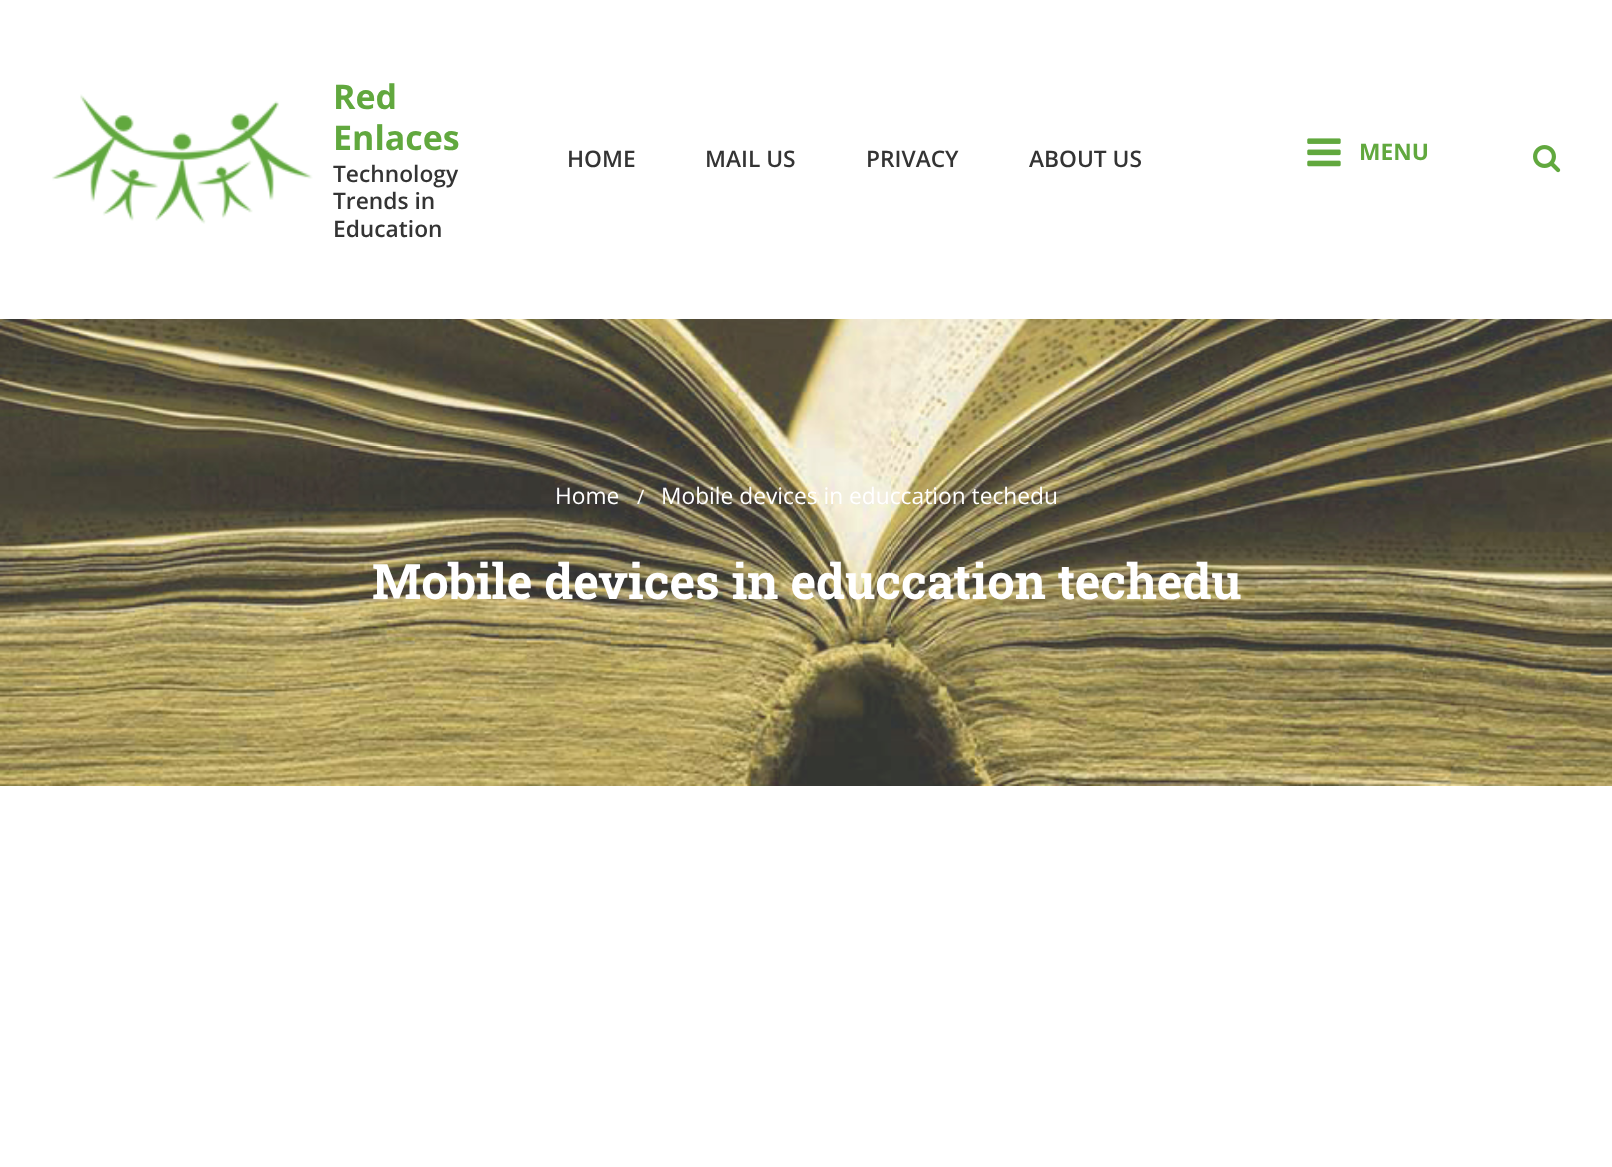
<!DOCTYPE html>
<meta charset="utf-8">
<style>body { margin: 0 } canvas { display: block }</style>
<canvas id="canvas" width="1612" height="1167"></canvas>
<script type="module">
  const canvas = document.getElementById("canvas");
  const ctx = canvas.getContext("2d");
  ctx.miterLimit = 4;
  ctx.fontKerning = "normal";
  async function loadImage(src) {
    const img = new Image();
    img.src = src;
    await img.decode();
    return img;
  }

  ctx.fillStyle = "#ffffff";
  ctx.fillRect(0, 0, 1612, 1167);
  ctx.drawImage(await loadImage("img1.png"), 52, 94, 261, 130);
  ctx.font = "bold 34px Open Sans";
  ctx.fillStyle = "#61a83e";
  ctx.fillText("Red", 333, 109);
  ctx.fillText("Enlaces", 333, 150);
  ctx.font = "600 22.75px Open Sans";
  ctx.fillStyle = "#343434";
  ctx.fillText("Technology", 333, 182);
  ctx.fillText("Trends in", 333, 209);
  ctx.fillText("Education", 333, 237);
  ctx.fillText("HOME", 567, 167);
  ctx.fillText("MAIL US", 705, 167);
  ctx.fillText("PRIVACY", 866, 167);
  ctx.fillText("ABOUT US", 1029, 167);
  ctx.drawImage(await loadImage("img2.png"), 1307, 138, 34, 29);
  ctx.font = "bold 22.75px Open Sans";
  ctx.fillStyle = "#61a83e";
  ctx.fillText("MENU", 1359, 160);
  ctx.drawImage(await loadImage("img3.png"), 1533, 145, 28, 28);
  ctx.drawImage(await loadImage("img4.png"), 0, 319, 1612, 467);
  ctx.font = "22.75px Open Sans";
  ctx.fillStyle = "#ffffff";
  ctx.fillText("Home", 555, 504);
  ctx.font = "20px Open Sans";
  ctx.fillText("/", 637, 504);
  ctx.font = "22.75px Open Sans";
  ctx.fillText("Mobile devices in educcation techedu", 661, 504);
  ctx.font = "bold 48.75px Roboto Slab";
  ctx.fillText("Mobile devices in educcation techedu", 372, 599);
</script>
